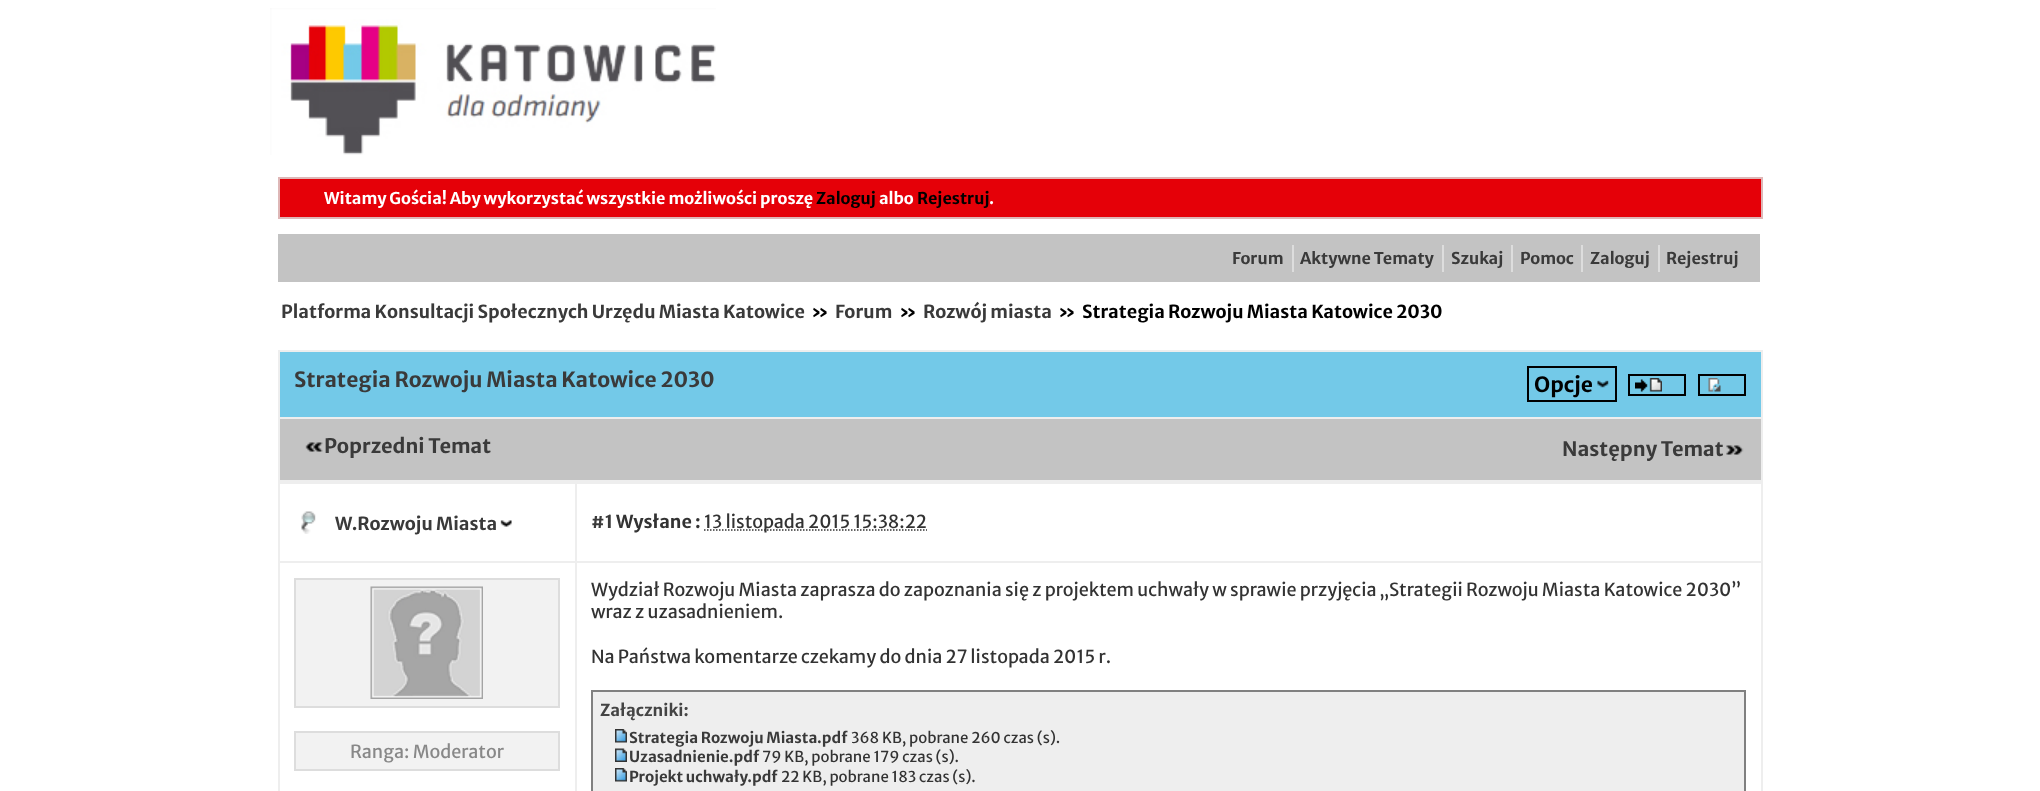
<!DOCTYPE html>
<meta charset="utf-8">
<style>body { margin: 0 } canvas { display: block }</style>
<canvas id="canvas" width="2040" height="791"></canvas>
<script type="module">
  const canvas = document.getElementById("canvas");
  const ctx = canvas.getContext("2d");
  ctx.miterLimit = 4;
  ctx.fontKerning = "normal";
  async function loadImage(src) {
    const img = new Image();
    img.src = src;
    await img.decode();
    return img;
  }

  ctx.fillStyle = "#ffffff";
  ctx.fillRect(0, 0, 2040, 791);
  ctx.drawImage(await loadImage("img1.png"), 270, 8, 446, 147);
  ctx.fillStyle = "#e50008";
  ctx.beginPath();
  ctx.rect(279, 178, 1483, 40);
  ctx.fill();
  ctx.strokeStyle = "#deb7b7";
  ctx.lineWidth = 2;
  ctx.stroke();
  ctx.font = "bold 16.2px Merriweather Sans";
  ctx.fillStyle = "#ffffff";
  ctx.fillText("Witamy Gościa! Aby wykorzystać wszystkie możliwości proszę", 324, 204);
  ctx.fillStyle = "#000000";
  ctx.fillText("Zaloguj", 816, 204);
  ctx.fillStyle = "#ffffff";
  ctx.fillText("albo", 879, 204);
  ctx.fillStyle = "#000000";
  ctx.fillText("Rejestruj", 917, 204);
  ctx.fillStyle = "#ffffff";
  ctx.fillText(".", 989, 204);
  ctx.fillStyle = "#c3c3c3";
  ctx.fillRect(278, 234, 1482, 48);
  ctx.fillStyle = "#3a3a3a";
  ctx.fillText("Forum", 1232, 264);
  ctx.fillText("Aktywne Tematy", 1300, 264);
  ctx.fillStyle = "#dddddd";
  ctx.fillRect(1292, 245, 2, 27);
  ctx.fillStyle = "#3a3a3a";
  ctx.fillText("Szukaj", 1451, 264);
  ctx.fillStyle = "#dddddd";
  ctx.fillRect(1442, 245, 2, 27);
  ctx.fillStyle = "#3a3a3a";
  ctx.fillText("Pomoc", 1520, 264);
  ctx.fillStyle = "#dddddd";
  ctx.fillRect(1511, 245, 2, 27);
  ctx.fillStyle = "#3a3a3a";
  ctx.fillText("Zaloguj", 1590, 264);
  ctx.fillStyle = "#dddddd";
  ctx.fillRect(1581, 245, 2, 27);
  ctx.fillStyle = "#3a3a3a";
  ctx.fillText("Rejestruj", 1666, 264);
  ctx.fillStyle = "#dddddd";
  ctx.fillRect(1658, 245, 2, 27);
  ctx.font = "bold 18px Merriweather Sans";
  ctx.fillStyle = "#3a3a3a";
  ctx.fillText("Platforma Konsultacji Społecznych Urzędu Miasta Katowice", 281, 318);
  ctx.fillStyle = "#000000";
  ctx.fillText("»", 811, 318);
  ctx.fillStyle = "#3a3a3a";
  ctx.fillText("Forum", 835, 318);
  ctx.fillStyle = "#000000";
  ctx.fillText("»", 899, 318);
  ctx.fillStyle = "#3a3a3a";
  ctx.fillText("Rozwój miasta", 923, 318);
  ctx.fillStyle = "#000000";
  ctx.fillText("»", 1058, 318);
  ctx.fillText("Strategia Rozwoju Miasta Katowice 2030", 1082, 318);
  ctx.fillStyle = "#73c9e8";
  ctx.fillRect(280, 352, 1481, 65);
  ctx.fillStyle = "#eeeeee";
  ctx.fillRect(278, 350, 1485, 2);
  ctx.fillRect(278, 417, 1485, 2);
  ctx.fillRect(1761, 417, 2, 65);
  ctx.fillRect(1761, 350, 2, 69);
  ctx.fillRect(278, 480, 1485, 2);
  ctx.fillRect(278, 417, 2, 65);
  ctx.fillRect(278, 350, 2, 69);
  ctx.font = "bold 21px Merriweather Sans";
  ctx.fillStyle = "#3a3a3a";
  ctx.fillText("Strategia Rozwoju Miasta Katowice 2030", 294, 387);
  ctx.drawImage(await loadImage("img2.png"), 1597, 380, 12, 8);
  ctx.strokeStyle = "#000000";
  ctx.strokeRect(1528, 367, 88, 34);
  ctx.fillStyle = "#000000";
  ctx.fillText("Opcje", 1534, 392);
  ctx.strokeRect(1629, 375, 56, 20);
  ctx.drawImage(await loadImage("img3.png"), 1635, 378, 27, 14);
  ctx.strokeRect(1699, 375, 46, 20);
  ctx.drawImage(await loadImage("img4.png"), 1708, 378, 13, 14);
  ctx.fillStyle = "#c3c3c3";
  ctx.fillRect(280, 419, 1481, 61);
  ctx.drawImage(await loadImage("img5.png"), 305, 442, 18, 10);
  ctx.font = "bold 20px Merriweather Sans";
  ctx.fillStyle = "#3a3a3a";
  ctx.fillText("Poprzedni Temat", 324, 453);
  ctx.drawImage(await loadImage("img6.png"), 1726, 445, 18, 10);
  ctx.fillText("Następny Temat", 1562, 456);
  ctx.fillStyle = "#eeeeee";
  ctx.fillRect(575, 482, 1188, 2);
  ctx.fillRect(575, 561, 1188, 2);
  ctx.fillRect(575, 561, 2, 230);
  ctx.fillRect(278, 561, 298, 2);
  ctx.fillRect(575, 482, 2, 81);
  ctx.fillRect(278, 482, 298, 2);
  ctx.fillRect(278, 561, 2, 230);
  ctx.fillRect(278, 482, 2, 81);
  ctx.drawImage(await loadImage("img7.png"), 301, 511, 15, 23);
  ctx.font = "bold 18px Merriweather Sans";
  ctx.fillStyle = "#3a3a3a";
  ctx.fillText("W.Rozwoju Miasta", 335, 530);
  ctx.drawImage(await loadImage("img8.png"), 500, 520, 12, 7);
  ctx.fillStyle = "#eeeeee";
  ctx.fillRect(1761, 561, 2, 230);
  ctx.fillRect(1761, 482, 2, 81);
  ctx.fillStyle = "#3a3a3a";
  ctx.fillText("#1", 591, 528);
  ctx.fillStyle = "#333333";
  ctx.fillText("Wysłane :", 616, 528);
  ctx.beginPath();
  ctx.moveTo(704, 530);
  ctx.lineTo(927, 530);
  ctx.strokeStyle = "#333333";
  ctx.lineWidth = 1.5;
  ctx.setLineDash([1.5, 1.5]);
  ctx.stroke();
  ctx.font = "18px Merriweather Sans";
  ctx.fillText("13 listopada 2015 15:38:22", 704, 528);
  ctx.fillStyle = "#f2f2f2";
  ctx.beginPath();
  ctx.rect(295, 579, 264, 128);
  ctx.fill();
  ctx.strokeStyle = "#dddddd";
  ctx.lineWidth = 2;
  ctx.setLineDash([]);
  ctx.stroke();
  ctx.drawImage(await loadImage("img9.png"), 370, 586, 113, 113);
  ctx.beginPath();
  ctx.rect(295, 732, 264, 38);
  ctx.fill();
  ctx.stroke();
  ctx.fillStyle = "#888888";
  ctx.fillText("Ranga: Moderator", 350, 758);
  ctx.fillStyle = "#333333";
  ctx.fillText("Wydział Rozwoju Miasta zaprasza do zapoznania się z projektem uchwały w sprawie przyjęcia „Strategii Rozwoju Miasta Katowice 2030”", 591, 596);
  ctx.fillText("wraz z uzasadnieniem.", 591, 618);
  ctx.fillText("Na Państwa komentarze czekamy do dnia 27 listopada 2015 r.", 591, 663);
  ctx.fillStyle = "#eeeeee";
  ctx.beginPath();
  ctx.rect(592, 691, 1153, 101);
  ctx.fill();
  ctx.strokeStyle = "#808080";
  ctx.stroke();
  ctx.font = "bold 16.5px Merriweather Sans";
  ctx.fillStyle = "#444444";
  ctx.fillText("Załączniki:", 600, 716);
  ctx.drawImage(await loadImage("img10.png"), 615, 729, 12, 14);
  ctx.font = "bold 15px Merriweather Sans";
  ctx.fillStyle = "#3a3a3a";
  ctx.fillText("Strategia Rozwoju Miasta.pdf", 629, 743);
  ctx.font = "15px Merriweather Sans";
  ctx.fillStyle = "#333333";
  ctx.fillText("368 KB, pobrane 260 czas (s).", 851, 743);
  ctx.drawImage(await loadImage("img11.png"), 615, 748, 12, 14);
  ctx.font = "bold 15px Merriweather Sans";
  ctx.fillStyle = "#3a3a3a";
  ctx.fillText("Uzasadnienie.pdf", 629, 762);
  ctx.font = "15px Merriweather Sans";
  ctx.fillStyle = "#333333";
  ctx.fillText("79 KB, pobrane 179 czas (s).", 762, 762);
  ctx.drawImage(await loadImage("img10.png"), 615, 768, 12, 14);
  ctx.font = "bold 15px Merriweather Sans";
  ctx.fillStyle = "#3a3a3a";
  ctx.fillText("Projekt uchwały.pdf", 629, 782);
  ctx.font = "15px Merriweather Sans";
  ctx.fillStyle = "#333333";
  ctx.fillText("22 KB, pobrane 183 czas (s).", 781, 782);
</script>
